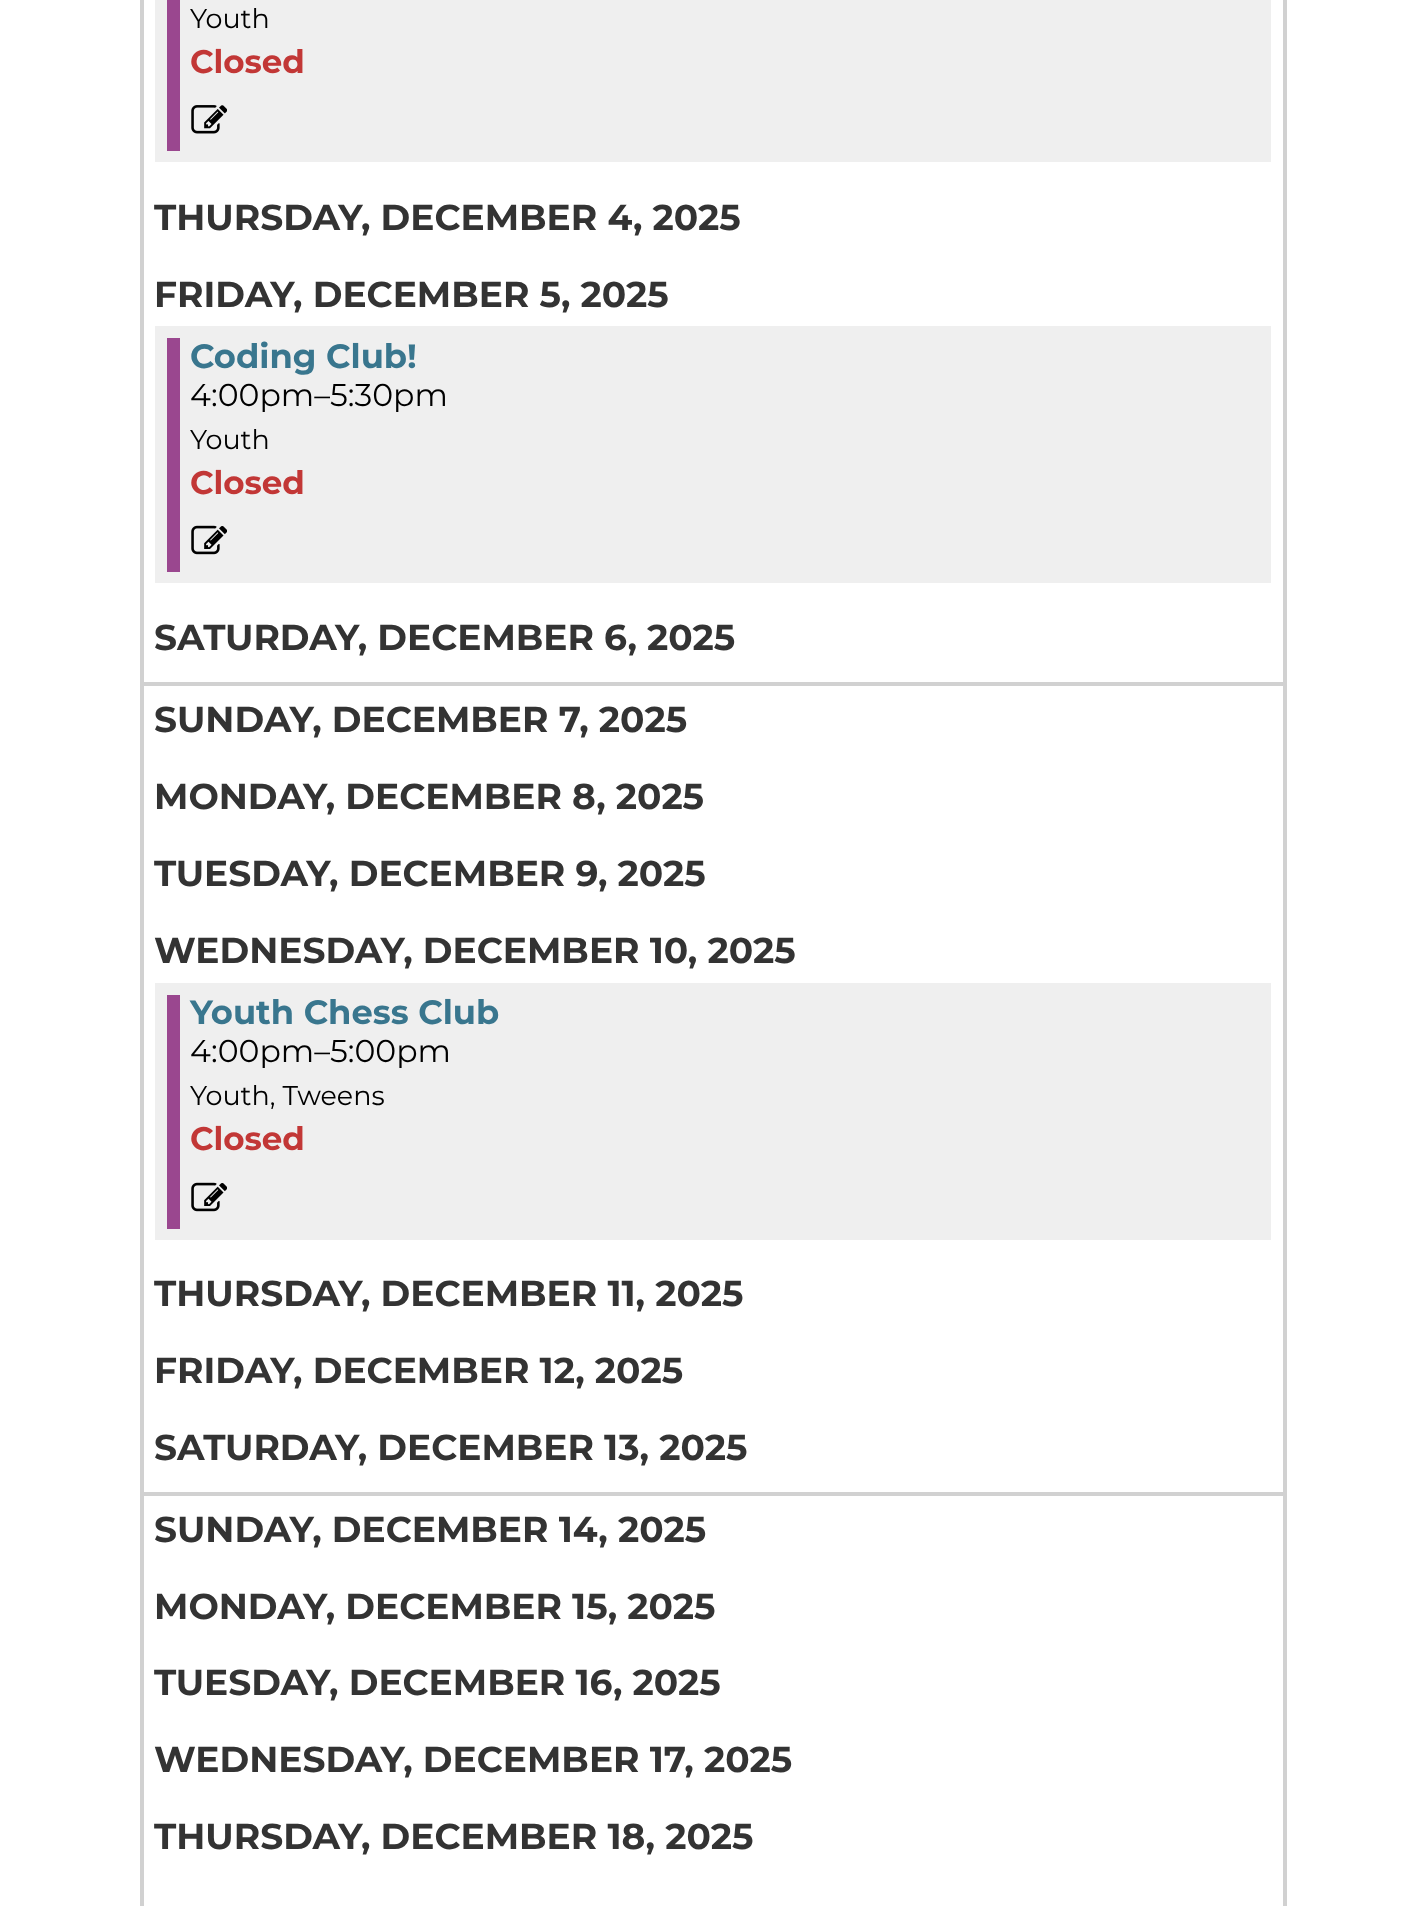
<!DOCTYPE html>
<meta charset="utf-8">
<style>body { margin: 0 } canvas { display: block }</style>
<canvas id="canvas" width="1423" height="1906"></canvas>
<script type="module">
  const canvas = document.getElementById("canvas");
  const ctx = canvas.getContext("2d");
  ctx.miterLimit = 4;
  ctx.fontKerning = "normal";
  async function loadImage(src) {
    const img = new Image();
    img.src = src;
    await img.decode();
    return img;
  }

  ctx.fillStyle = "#ffffff";
  ctx.fillRect(0, 0, 1423, 1906);
  ctx.strokeStyle = "#d1d1d1";
  ctx.lineWidth = 5;
  ctx.strokeRect(142.5, -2.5, 1142, 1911);
  ctx.fillRect(144, 0, 1139, 682);
  ctx.fillStyle = "#efefef";
  ctx.fillRect(155, 0, 1116, 162);
  ctx.fillStyle = "#9a478f";
  ctx.fillRect(167, 0, 13, 151);
  ctx.font = "27px Montserrat";
  ctx.fillStyle = "#000000";
  ctx.fillText("Youth", 190, 28);
  ctx.font = "bold 32.5px Montserrat";
  ctx.fillStyle = "#c23736";
  ctx.fillText("Closed", 190, 73);
  ctx.drawImage(await loadImage("img1.png"), 191, 105, 36, 29);
  ctx.font = "bold 36px Montserrat";
  ctx.fillStyle = "#333333";
  ctx.fillText("THURSDAY, DECEMBER 4, 2025", 154, 230);
  ctx.fillText("FRIDAY, DECEMBER 5, 2025", 154, 307);
  ctx.fillStyle = "#efefef";
  ctx.fillRect(155, 326, 1116, 257);
  ctx.fillStyle = "#9a478f";
  ctx.fillRect(167, 338, 13, 234);
  ctx.font = "bold 33.75px Montserrat";
  ctx.fillStyle = "#39768e";
  ctx.fillText("Coding Club!", 190, 368);
  ctx.font = "31.5px Montserrat";
  ctx.fillStyle = "#000000";
  ctx.fillText("4:00pm–5:30pm", 190, 406);
  ctx.font = "27px Montserrat";
  ctx.fillText("Youth", 190, 449);
  ctx.font = "bold 32.5px Montserrat";
  ctx.fillStyle = "#c23736";
  ctx.fillText("Closed", 190, 494);
  ctx.drawImage(await loadImage("img2.png"), 191, 525, 36, 30);
  ctx.font = "bold 36px Montserrat";
  ctx.fillStyle = "#333333";
  ctx.fillText("SATURDAY, DECEMBER 6, 2025", 154, 650);
  ctx.fillStyle = "#d1d1d1";
  ctx.fillRect(144, 682, 1139, 4);
  ctx.fillStyle = "#ffffff";
  ctx.fillRect(144, 686, 1139, 806);
  ctx.fillStyle = "#333333";
  ctx.fillText("SUNDAY, DECEMBER 7, 2025", 154, 732);
  ctx.fillText("MONDAY, DECEMBER 8, 2025", 154, 809);
  ctx.fillText("TUESDAY, DECEMBER 9, 2025", 154, 886);
  ctx.fillText("WEDNESDAY, DECEMBER 10, 2025", 154, 963);
  ctx.fillStyle = "#efefef";
  ctx.fillRect(155, 983, 1116, 257);
  ctx.fillStyle = "#9a478f";
  ctx.fillRect(167, 995, 13, 234);
  ctx.font = "bold 33.75px Montserrat";
  ctx.fillStyle = "#39768e";
  ctx.fillText("Youth Chess Club", 190, 1024);
  ctx.font = "31.5px Montserrat";
  ctx.fillStyle = "#000000";
  ctx.fillText("4:00pm–5:00pm", 190, 1062);
  ctx.font = "27px Montserrat";
  ctx.fillText("Youth, Tweens", 190, 1105);
  ctx.font = "bold 32.5px Montserrat";
  ctx.fillStyle = "#c23736";
  ctx.fillText("Closed", 190, 1150);
  ctx.drawImage(await loadImage("img2.png"), 191, 1182, 36, 30);
  ctx.font = "bold 36px Montserrat";
  ctx.fillStyle = "#333333";
  ctx.fillText("THURSDAY, DECEMBER 11, 2025", 154, 1306);
  ctx.fillText("FRIDAY, DECEMBER 12, 2025", 154, 1383);
  ctx.fillText("SATURDAY, DECEMBER 13, 2025", 154, 1460);
  ctx.fillStyle = "#d1d1d1";
  ctx.fillRect(144, 1492, 1139, 4);
  ctx.fillStyle = "#ffffff";
  ctx.fillRect(144, 1496, 1139, 410);
  ctx.fillStyle = "#333333";
  ctx.fillText("SUNDAY, DECEMBER 14, 2025", 154, 1542);
  ctx.fillText("MONDAY, DECEMBER 15, 2025", 154, 1619);
  ctx.fillText("TUESDAY, DECEMBER 16, 2025", 154, 1695);
  ctx.fillText("WEDNESDAY, DECEMBER 17, 2025", 154, 1772);
  ctx.fillText("THURSDAY, DECEMBER 18, 2025", 154, 1849);
</script>
